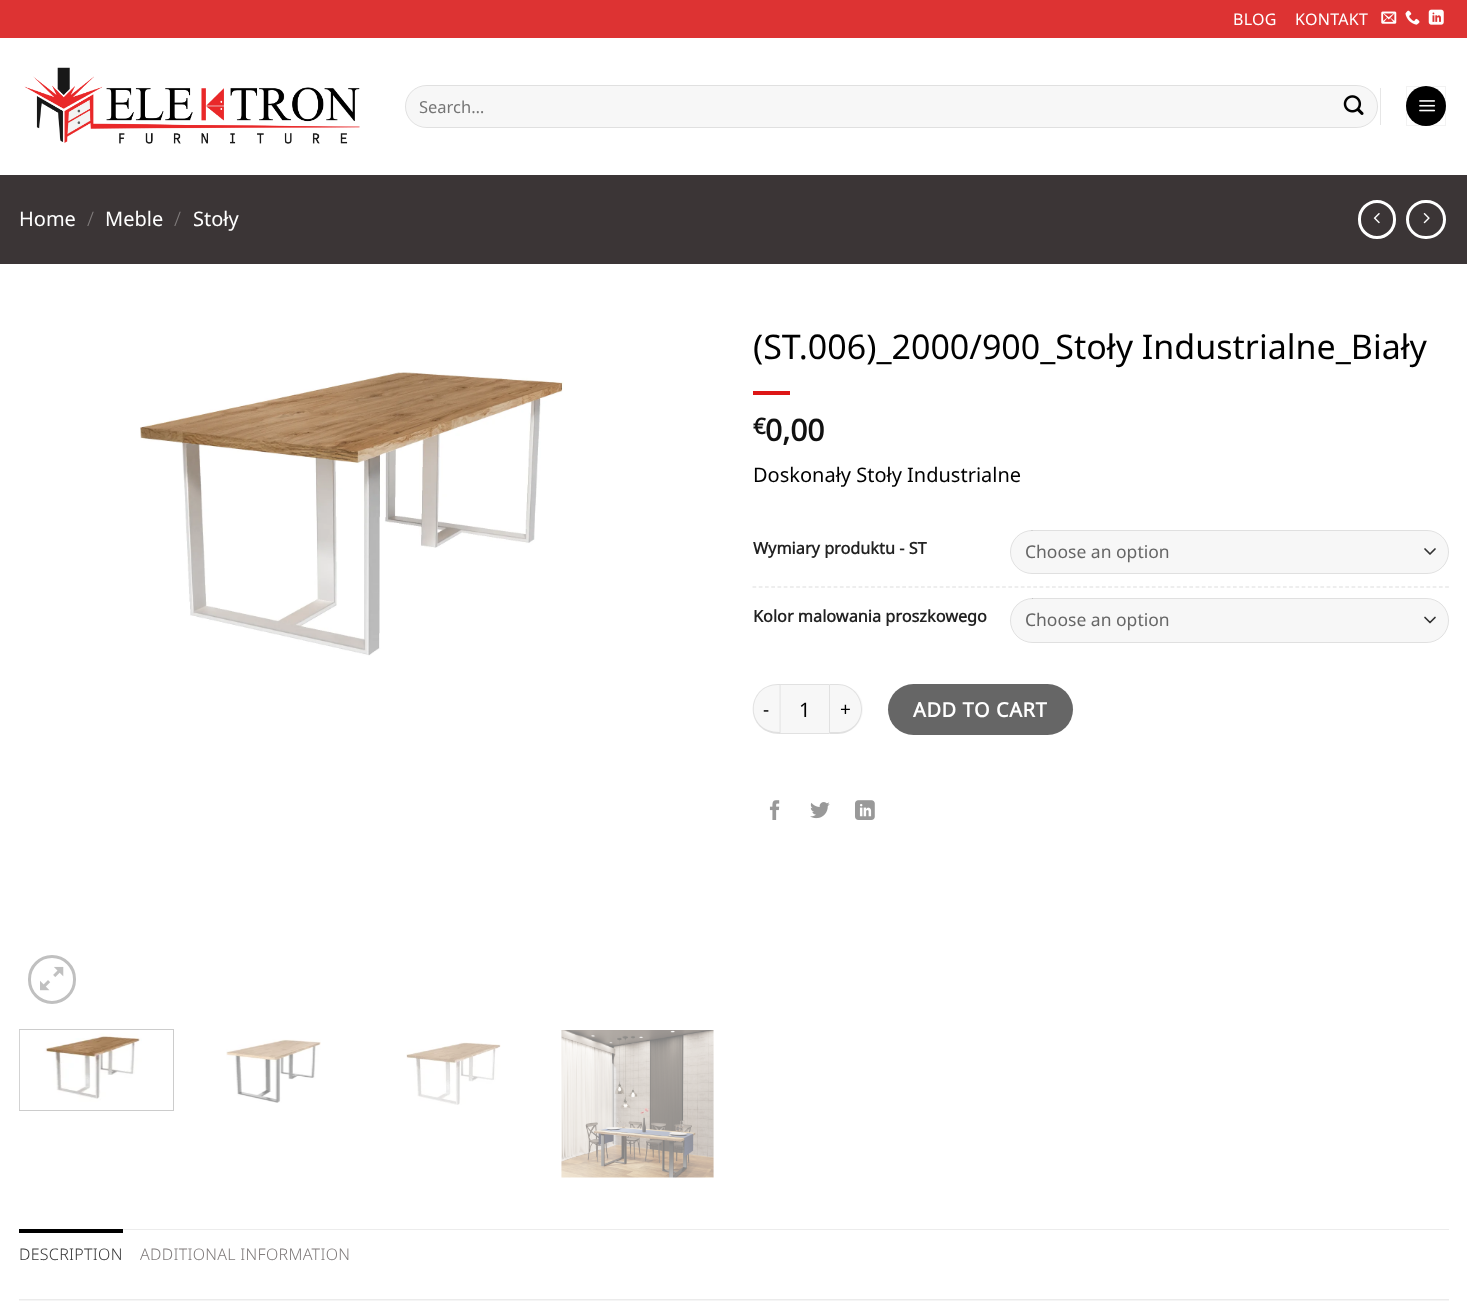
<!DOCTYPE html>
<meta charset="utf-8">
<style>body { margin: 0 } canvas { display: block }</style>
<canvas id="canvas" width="1467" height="1301"></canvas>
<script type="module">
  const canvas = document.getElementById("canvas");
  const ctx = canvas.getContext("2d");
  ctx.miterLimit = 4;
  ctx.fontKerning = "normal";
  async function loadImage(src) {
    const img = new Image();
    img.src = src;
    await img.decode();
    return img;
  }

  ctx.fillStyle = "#ffffff";
  ctx.fillRect(0, 0, 1467, 1301);
  ctx.fillStyle = "#dd3333";
  ctx.fillRect(0, 0, 1467, 38);
  ctx.letterSpacing = "0.3px";
  ctx.font = "16px Noto Sans";
  ctx.fillStyle = "#ffffff";
  ctx.fillText("BLOG", 1233, 25);
  ctx.fillText("KONTAKT", 1295, 25);
  ctx.drawImage(await loadImage("img1.png"), 1381, 11, 16, 13);
  ctx.drawImage(await loadImage("img2.png"), 1405, 10, 15, 15);
  ctx.drawImage(await loadImage("img3.png"), 1428, 9, 16, 16);
  ctx.drawImage(await loadImage("img4.png"), 24, 67, 336, 77);
  ctx.fillStyle = "#f7f7f7";
  ctx.beginPath();
  ctx.roundRect(405, 85, 973, 43, 21.5);
  ctx.fill();
  ctx.beginPath();
  ctx.roundRect(405.5, 85.5, 972, 42, 21);
  ctx.strokeStyle = "rgba(0, 0, 0, 0.09)";
  ctx.stroke();
  ctx.letterSpacing = "0px";
  ctx.font = "16.5px Noto Sans";
  ctx.fillStyle = "#757575";
  ctx.fillText("Search…", 419, 113);
  ctx.drawImage(await loadImage("img5.png"), 1343, 95, 21, 20);
  ctx.fillStyle = "#e6e6e6";
  ctx.fillRect(1380, 88, 1, 37);
  ctx.fillStyle = "#000000";
  ctx.beginPath();
  ctx.arc(1426, 106, 20, 0, Math.PI * 2);
  ctx.fill();
  ctx.strokeStyle = "rgba(0, 0, 0, 0.05)";
  ctx.strokeRect(1406.5, 86.5, 39, 39);
  ctx.drawImage(await loadImage("img6.png"), 1419, 100, 17, 12);
  ctx.fillStyle = "#3b3536";
  ctx.fillRect(0, 175, 1467, 89);
  ctx.font = "20px Noto Sans";
  ctx.fillStyle = "#ffffff";
  ctx.fillText("Home", 19, 226);
  ctx.font = "300 20px Noto Sans";
  ctx.fillStyle = "#807c7c";
  ctx.fillText("/", 87, 226);
  ctx.font = "20px Noto Sans";
  ctx.fillStyle = "#ffffff";
  ctx.fillText("Meble", 105, 226);
  ctx.font = "300 20px Noto Sans";
  ctx.fillStyle = "#807c7c";
  ctx.fillText("/", 174, 226);
  ctx.font = "20px Noto Sans";
  ctx.fillStyle = "#ffffff";
  ctx.fillText("Stoły", 193, 226);
  ctx.beginPath();
  ctx.roundRect(1359.5, 201.5, 35, 36, 17.5);
  ctx.strokeStyle = "#ffffff";
  ctx.lineWidth = 3;
  ctx.stroke();
  ctx.drawImage(await loadImage("img7.png"), 1373, 213, 7, 11);
  ctx.beginPath();
  ctx.roundRect(1407.5, 201.5, 37, 36, 18);
  ctx.stroke();
  ctx.drawImage(await loadImage("img8.png"), 1423, 213, 7, 11);
  ctx.drawImage(await loadImage("img9.png"), 140, 372, 424, 284);
  ctx.beginPath();
  ctx.roundRect(29.5, 956.5, 45, 46, 22.5);
  ctx.strokeStyle = "#c0c0c0";
  ctx.stroke();
  ctx.drawImage(await loadImage("img10.png"), 40, 966, 24, 25);
  ctx.strokeStyle = "#cccccc";
  ctx.lineWidth = 1;
  ctx.strokeRect(19.5, 1029.5, 154, 81);
  ctx.drawImage(await loadImage("img11.png"), 19, 1030, 123, 80);
  ctx.drawImage(await loadImage("img12.png"), 226, 1039, 95, 64);
  ctx.drawImage(await loadImage("img13.png"), 406, 1042, 95, 63);
  ctx.drawImage(await loadImage("img14.png"), 561, 1030, 153, 148);
  ctx.font = "34px Noto Sans Thai";
  ctx.fillStyle = "#000000";
  ctx.fillText("(ST.006)_2000/900_Stoły Industrialne_Biały", 753, 359);
  ctx.fillStyle = "#dd1616";
  ctx.fillRect(753, 391, 37, 4);
  ctx.font = "bold 22px Noto Sans";
  ctx.fillStyle = "#111111";
  ctx.fillText("€", 753, 434);
  ctx.font = "bold 30px Noto Sans";
  ctx.fillText("0,00", 765, 441);
  ctx.font = "20px Noto Sans";
  ctx.fillStyle = "#000000";
  ctx.fillText("Doskonały Stoły Industrialne", 753, 482);
  ctx.font = "bold 16.25px Noto Sans";
  ctx.fillStyle = "#222222";
  ctx.fillText("Wymiary produktu - ST", 753, 554);
  ctx.fillStyle = "#f7f7f7";
  ctx.beginPath();
  ctx.roundRect(1010, 530, 439, 44, 22);
  ctx.fill();
  ctx.beginPath();
  ctx.moveTo(1425, 549);
  ctx.lineTo(1430, 554);
  ctx.lineTo(1435, 549);
  ctx.strokeStyle = "#333333";
  ctx.lineWidth = 1.7;
  ctx.lineCap = "round";
  ctx.lineJoin = "round";
  ctx.stroke();
  ctx.beginPath();
  ctx.roundRect(1010.5, 530.5, 438, 43, 21.5);
  ctx.strokeStyle = "rgba(0, 0, 0, 0.09)";
  ctx.lineWidth = 1;
  ctx.lineJoin = "miter";
  ctx.stroke();
  ctx.font = "17.5px Noto Sans";
  ctx.fillStyle = "#666666";
  ctx.fillText("Choose an option", 1025, 558);
  ctx.beginPath();
  ctx.moveTo(752.5, 587);
  ctx.lineTo(1449, 587);
  ctx.strokeStyle = "#dddddd";
  ctx.lineWidth = 1.2;
  ctx.lineCap = "butt";
  ctx.setLineDash([3.75, 2.49]);
  ctx.stroke();
  ctx.font = "bold 16.25px Noto Sans";
  ctx.fillStyle = "#222222";
  ctx.fillText("Kolor malowania proszkowego", 753, 622);
  ctx.fillStyle = "#f7f7f7";
  ctx.beginPath();
  ctx.roundRect(1010, 598, 439, 45, 22.5);
  ctx.fill();
  ctx.beginPath();
  ctx.moveTo(1425, 617.5);
  ctx.lineTo(1430, 622.5);
  ctx.lineTo(1435, 617.5);
  ctx.strokeStyle = "#333333";
  ctx.lineWidth = 1.7;
  ctx.lineCap = "round";
  ctx.lineJoin = "round";
  ctx.setLineDash([]);
  ctx.stroke();
  ctx.beginPath();
  ctx.roundRect(1010.5, 598.5, 438, 44, 22);
  ctx.strokeStyle = "rgba(0, 0, 0, 0.09)";
  ctx.lineWidth = 1;
  ctx.lineJoin = "miter";
  ctx.stroke();
  ctx.font = "17.5px Noto Sans";
  ctx.fillStyle = "#666666";
  ctx.fillText("Choose an option", 1025, 626);
  ctx.fillStyle = "#f7f7f7";
  ctx.beginPath();
  ctx.roundRect(753, 684, 27, 50, [25, 0, 0, 25]);
  ctx.fill();
  ctx.fillStyle = "rgba(0, 0, 0, 0.09)";
  ctx.beginPath();
  ctx.moveTo(778, 684);
  ctx.lineTo(780, 684);
  ctx.lineTo(780, 734);
  ctx.bezierCurveTo(743, 734, 745, 684, 778, 684);
  ctx.closePath();
  ctx.moveTo(778, 685);
  ctx.lineTo(780, 685);
  ctx.lineTo(780, 732);
  ctx.bezierCurveTo(744, 732, 747, 685, 778, 685);
  ctx.closePath();
  ctx.fill("evenodd");
  ctx.letterSpacing = "1px";
  ctx.font = "19px Noto Sans";
  ctx.fillStyle = "#000000";
  ctx.fillText("-", 763, 716);
  ctx.fillStyle = "#f7f7f7";
  ctx.beginPath();
  ctx.rect(780.5, 684.5, 49, 49);
  ctx.fill();
  ctx.strokeStyle = "#e1e1e1";
  ctx.stroke();
  ctx.letterSpacing = "0px";
  ctx.font = "20px Noto Sans";
  ctx.fillStyle = "#000000";
  ctx.fillText("1", 799, 717);
  ctx.fillStyle = "#f7f7f7";
  ctx.beginPath();
  ctx.roundRect(830, 684, 33, 50, [0, 25, 25, 0]);
  ctx.fill();
  ctx.fillStyle = "rgba(0, 0, 0, 0.09)";
  ctx.beginPath();
  ctx.moveTo(830, 684);
  ctx.lineTo(838, 684);
  ctx.bezierCurveTo(851, 684, 862, 695, 862, 709);
  ctx.bezierCurveTo(862, 723, 851, 734, 838, 734);
  ctx.lineTo(830, 734);
  ctx.closePath();
  ctx.moveTo(830, 685);
  ctx.lineTo(838, 685);
  ctx.bezierCurveTo(851, 685, 861, 696, 861, 709);
  ctx.bezierCurveTo(861, 722, 851, 732, 838, 732);
  ctx.lineTo(830, 732);
  ctx.closePath();
  ctx.fill("evenodd");
  ctx.letterSpacing = "1px";
  ctx.font = "19px Noto Sans";
  ctx.fillStyle = "#000000";
  ctx.fillText("+", 840, 716);
  ctx.fillStyle = "#666666";
  ctx.beginPath();
  ctx.roundRect(888, 684, 185, 51, 25.5);
  ctx.fill();
  ctx.letterSpacing = "0.6px";
  ctx.font = "bold 20px Noto Sans";
  ctx.fillStyle = "#ffffff";
  ctx.fillText("ADD TO CART", 913, 717);
  ctx.drawImage(await loadImage("img15.png"), 769, 800, 11, 20);
  ctx.drawImage(await loadImage("img16.png"), 810, 802, 20, 17);
  ctx.drawImage(await loadImage("img17.png"), 855, 800, 20, 20);
  ctx.fillStyle = "#ececec";
  ctx.fillRect(123, 1229, 1326, 1);
  ctx.fillStyle = "#000000";
  ctx.fillRect(19, 1229, 104, 4);
  ctx.letterSpacing = "0.3px";
  ctx.font = "300 16px Noto Sans";
  ctx.fillStyle = "#363636";
  ctx.fillText("DESCRIPTION", 19, 1260);
  ctx.fillStyle = "#807c7c";
  ctx.fillText("ADDITIONAL INFORMATION", 140, 1260);
  ctx.fillStyle = "#f5f5f5";
  ctx.fillRect(19, 1300, 1430, 1);
  ctx.fillStyle = "#ebebeb";
  ctx.fillRect(19, 1299, 1430, 1);
</script>
